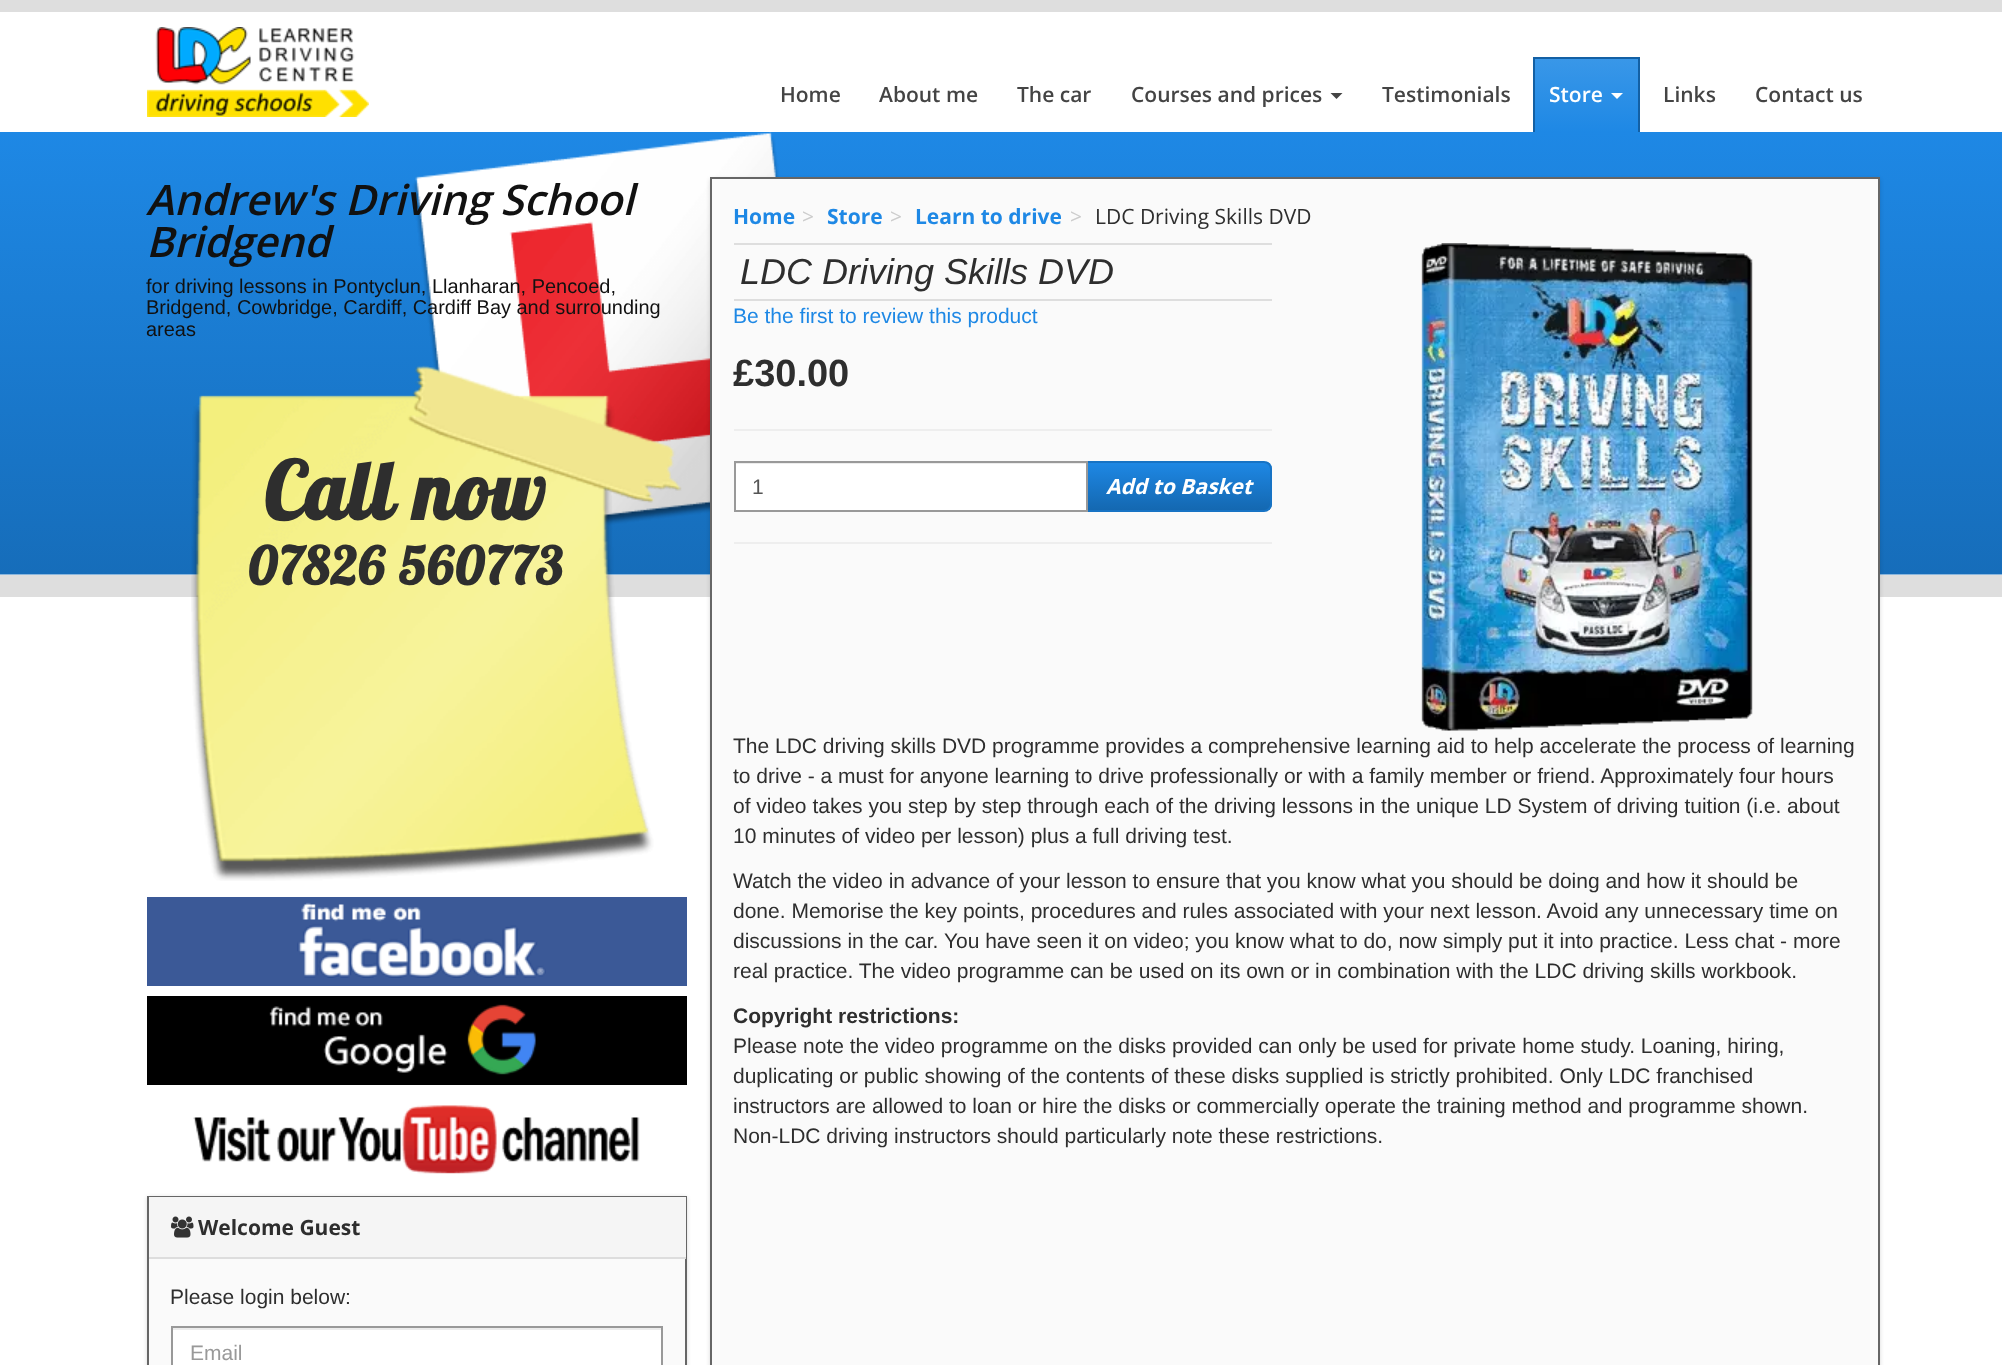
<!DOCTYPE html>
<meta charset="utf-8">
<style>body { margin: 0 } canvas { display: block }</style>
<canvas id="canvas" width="2002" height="1365"></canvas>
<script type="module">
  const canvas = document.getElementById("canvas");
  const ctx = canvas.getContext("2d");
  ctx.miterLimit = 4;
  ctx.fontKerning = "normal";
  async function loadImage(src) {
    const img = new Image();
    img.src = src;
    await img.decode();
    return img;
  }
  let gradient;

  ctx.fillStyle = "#ffffff";
  ctx.fillRect(0, 0, 2002, 1365);
  ctx.fillStyle = "#dedede";
  ctx.fillRect(0, 0, 2002, 12);
  ctx.drawImage(await loadImage("img1.png"), 147, 27, 222, 90);
  ctx.font = "600 21px Open Sans";
  ctx.fillStyle = "#444444";
  ctx.fillText("Home", 780, 102);
  ctx.fillText("About me", 879, 102);
  ctx.fillText("The car", 1017, 102);
  ctx.fillText("Courses and prices", 1131, 102);
  ctx.beginPath();
  ctx.moveTo(1330.5, 93);
  ctx.lineTo(1342.5, 93);
  ctx.lineTo(1336.5, 99);
  ctx.closePath();
  ctx.fill();
  ctx.fillText("Testimonials", 1382, 102);
  gradient = ctx.createLinearGradient(1586, 59, 1586, 132);
  gradient.addColorStop(0, "#3997e8");
  gradient.addColorStop(1, "#1e88e5");
  ctx.fillStyle = gradient;
  ctx.fillRect(1535, 59, 103, 73);
  ctx.fillStyle = "#1360a4";
  ctx.fillRect(1533, 57, 107, 2);
  ctx.fillRect(1638, 57, 2, 75);
  ctx.fillRect(1533, 57, 2, 75);
  ctx.fillStyle = "#ffffff";
  ctx.fillText("Store", 1549, 102);
  ctx.beginPath();
  ctx.moveTo(1611, 93);
  ctx.lineTo(1623, 93);
  ctx.lineTo(1617, 99);
  ctx.closePath();
  ctx.fill();
  ctx.fillStyle = "#444444";
  ctx.fillText("Links", 1663, 102);
  ctx.fillText("Contact us", 1755, 102);
  ctx.drawImage(await loadImage("img2.png"), 0, 132, 2002, 443);
  ctx.fillStyle = "#dedede";
  ctx.fillRect(0, 575, 2002, 22);
  ctx.font = "italic 600 42px Open Sans";
  ctx.fillStyle = "#111111";
  ctx.fillText("Andrew's Driving School", 146, 215);
  ctx.fillText("Bridgend", 146, 257);
  ctx.font = "19.95px Liberation Sans";
  ctx.fillText("for driving lessons in Pontyclun, Llanharan, Pencoed,", 146, 293);
  ctx.fillText("Bridgend, Cowbridge, Cardiff, Cardiff Bay and surrounding", 146, 314);
  ctx.fillText("areas", 146, 336);
  ctx.drawImage(await loadImage("img3.png"), 191, 365, 491, 516);
  ctx.letterSpacing = "1.5px";
  ctx.font = "bold 80px Lobster";
  ctx.fillStyle = "#2e2e2e";
  ctx.fillText("Call now", 264, 520);
  ctx.font = "bold 52px Lobster";
  ctx.fillText("07826 560773", 248, 585);
  ctx.fillStyle = "#3b5997";
  ctx.fillRect(147, 897, 540, 89);
  ctx.drawImage(await loadImage("img4.png"), 297, 902, 249, 76);
  ctx.fillStyle = "#000000";
  ctx.fillRect(147, 996, 540, 89);
  ctx.drawImage(await loadImage("img5.png"), 269, 1004, 267, 71);
  ctx.drawImage(await loadImage("img6.png"), 193, 1105, 447, 69);
  ctx.fillStyle = "rgba(0, 0, 0, 0.15)";
  ctx.filter = "blur(2px)";
  ctx.beginPath();
  ctx.rect(147, 1197, 540, 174);
  ctx.fill();
  ctx.filter = "none";
  ctx.fillStyle = "#fafafa";
  ctx.fillRect(149, 1259, 536, 106);
  ctx.strokeStyle = "#666666";
  ctx.lineWidth = 2;
  ctx.strokeRect(148, 1197, 538, 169);
  ctx.fillStyle = "#f5f5f5";
  ctx.fillRect(149, 1197, 537, 60);
  ctx.fillStyle = "#dddddd";
  ctx.fillRect(149, 1257, 537, 2);
  ctx.drawImage(await loadImage("img7.png"), 171, 1216, 23, 22);
  ctx.letterSpacing = "0px";
  ctx.font = "bold 21px Open Sans";
  ctx.fillStyle = "#2e2e2e";
  ctx.fillText("Welcome Guest", 198, 1235);
  ctx.font = "21px Liberation Sans";
  ctx.fillText("Please login below:", 170, 1304);
  ctx.fillStyle = "#ffffff";
  ctx.fillRect(173, 1330, 488, 35);
  ctx.fillStyle = "#ececec";
  ctx.fillRect(173, 1328, 489, 2);
  ctx.strokeStyle = "#999999";
  ctx.strokeRect(172, 1327, 490, 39);
  ctx.fillStyle = "#999999";
  ctx.fillText("Email", 190, 1360);
  ctx.fillStyle = "rgba(0, 0, 0, 0.15)";
  ctx.filter = "blur(2px)";
  ctx.beginPath();
  ctx.rect(710, 179, 1170, 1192);
  ctx.fill();
  ctx.filter = "none";
  ctx.fillStyle = "#fafafa";
  ctx.beginPath();
  ctx.rect(711, 178, 1168, 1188);
  ctx.fill();
  ctx.strokeStyle = "#666666";
  ctx.stroke();
  ctx.font = "bold 21px Open Sans";
  ctx.fillStyle = "#1e88e5";
  ctx.fillText("Home", 733, 224);
  ctx.font = "21px Open Sans";
  ctx.fillStyle = "#cccccc";
  ctx.fillText(">", 802, 224);
  ctx.font = "bold 21px Open Sans";
  ctx.fillStyle = "#1e88e5";
  ctx.fillText("Store", 827, 224);
  ctx.font = "21px Open Sans";
  ctx.fillStyle = "#cccccc";
  ctx.fillText(">", 890, 224);
  ctx.font = "bold 21px Open Sans";
  ctx.fillStyle = "#1e88e5";
  ctx.fillText("Learn to drive", 915, 224);
  ctx.font = "21px Open Sans";
  ctx.fillStyle = "#cccccc";
  ctx.fillText(">", 1070, 224);
  ctx.fillStyle = "#2e2e2e";
  ctx.fillText("LDC Driving Skills DVD", 1095, 224);
  ctx.fillStyle = "#dedede";
  ctx.fillRect(734, 243, 538, 2);
  ctx.fillRect(734, 299, 538, 2);
  ctx.font = "italic 36px Liberation Sans";
  ctx.fillStyle = "#2e2e2e";
  ctx.fillText("LDC Driving Skills DVD", 740, 284);
  ctx.font = "21px Liberation Sans";
  ctx.fillStyle = "#1e88e5";
  ctx.fillText("Be the first to review this product", 733, 323);
  ctx.font = "bold 38px Liberation Sans";
  ctx.fillStyle = "#2e2e2e";
  ctx.fillText("£30.00", 733, 386);
  ctx.fillStyle = "#eeeeee";
  ctx.fillRect(734, 429, 538, 2);
  ctx.fillStyle = "#ffffff";
  ctx.fillRect(736, 464, 350, 46);
  ctx.fillStyle = "#ececec";
  ctx.fillRect(735, 463, 351, 1);
  ctx.save();
  ctx.beginPath();
  ctx.roundRect(1086, 461, 186, 51, [0, 8, 8, 0]);
  ctx.clip();
  gradient = ctx.createLinearGradient(1179, 462, 1179, 510);
  gradient.addColorStop(0, "#1e88e5");
  gradient.addColorStop(1, "#1468b1");
  ctx.fillStyle = gradient;
  ctx.fillRect(1088, 462, 184, 48);
  ctx.restore();
  ctx.beginPath();
  ctx.roundRect(1087, 462, 184, 49, [0, 7, 7, 0]);
  ctx.strokeStyle = "#1773c4";
  ctx.stroke();
  ctx.strokeStyle = "#999999";
  ctx.strokeRect(735, 462, 352, 49);
  ctx.font = "21px Liberation Sans";
  ctx.fillStyle = "#555555";
  ctx.fillText("1", 752, 494);
  ctx.font = "italic bold 21px Open Sans";
  ctx.fillStyle = "#ffffff";
  ctx.fillText("Add to Basket", 1106, 494);
  ctx.fillStyle = "#eeeeee";
  ctx.fillRect(734, 542, 538, 2);
  ctx.drawImage(await loadImage("img8.png"), 1421, 243, 332, 488);
  ctx.font = "21px Liberation Sans";
  ctx.fillStyle = "#2e2e2e";
  ctx.fillText("The LDC driving skills DVD programme provides a comprehensive learning aid to help accelerate the process of learning", 733, 753);
  ctx.fillText("to drive - a must for anyone learning to drive professionally or with a family member or friend. Approximately four hours", 733, 783);
  ctx.fillText("of video takes you step by step through each of the driving lessons in the unique LD System of driving tuition (i.e. about", 733, 813);
  ctx.fillText("10 minutes of video per lesson) plus a full driving test.", 733, 843);
  ctx.fillText("Watch the video in advance of your lesson to ensure that you know what you should be doing and how it should be", 733, 888);
  ctx.fillText("done. Memorise the key points, procedures and rules associated with your next lesson. Avoid any unnecessary time on", 733, 918);
  ctx.fillText("discussions in the car. You have seen it on video; you know what to do, now simply put it into practice. Less chat - more", 733, 948);
  ctx.fillText("real practice. The video programme can be used on its own or in combination with the LDC driving skills workbook.", 733, 978);
  ctx.font = "bold 21px Liberation Sans";
  ctx.fillText("Copyright restrictions:", 733, 1023);
  ctx.font = "21px Liberation Sans";
  ctx.fillText("Please note the video programme on the disks provided can only be used for private home study. Loaning, hiring,", 733, 1053);
  ctx.fillText("duplicating or public showing of the contents of these disks supplied is strictly prohibited. Only LDC franchised", 733, 1083);
  ctx.fillText("instructors are allowed to loan or hire the disks or commercially operate the training method and programme shown.", 733, 1113);
  ctx.fillText("Non-LDC driving instructors should particularly note these restrictions.", 733, 1143);
</script>
